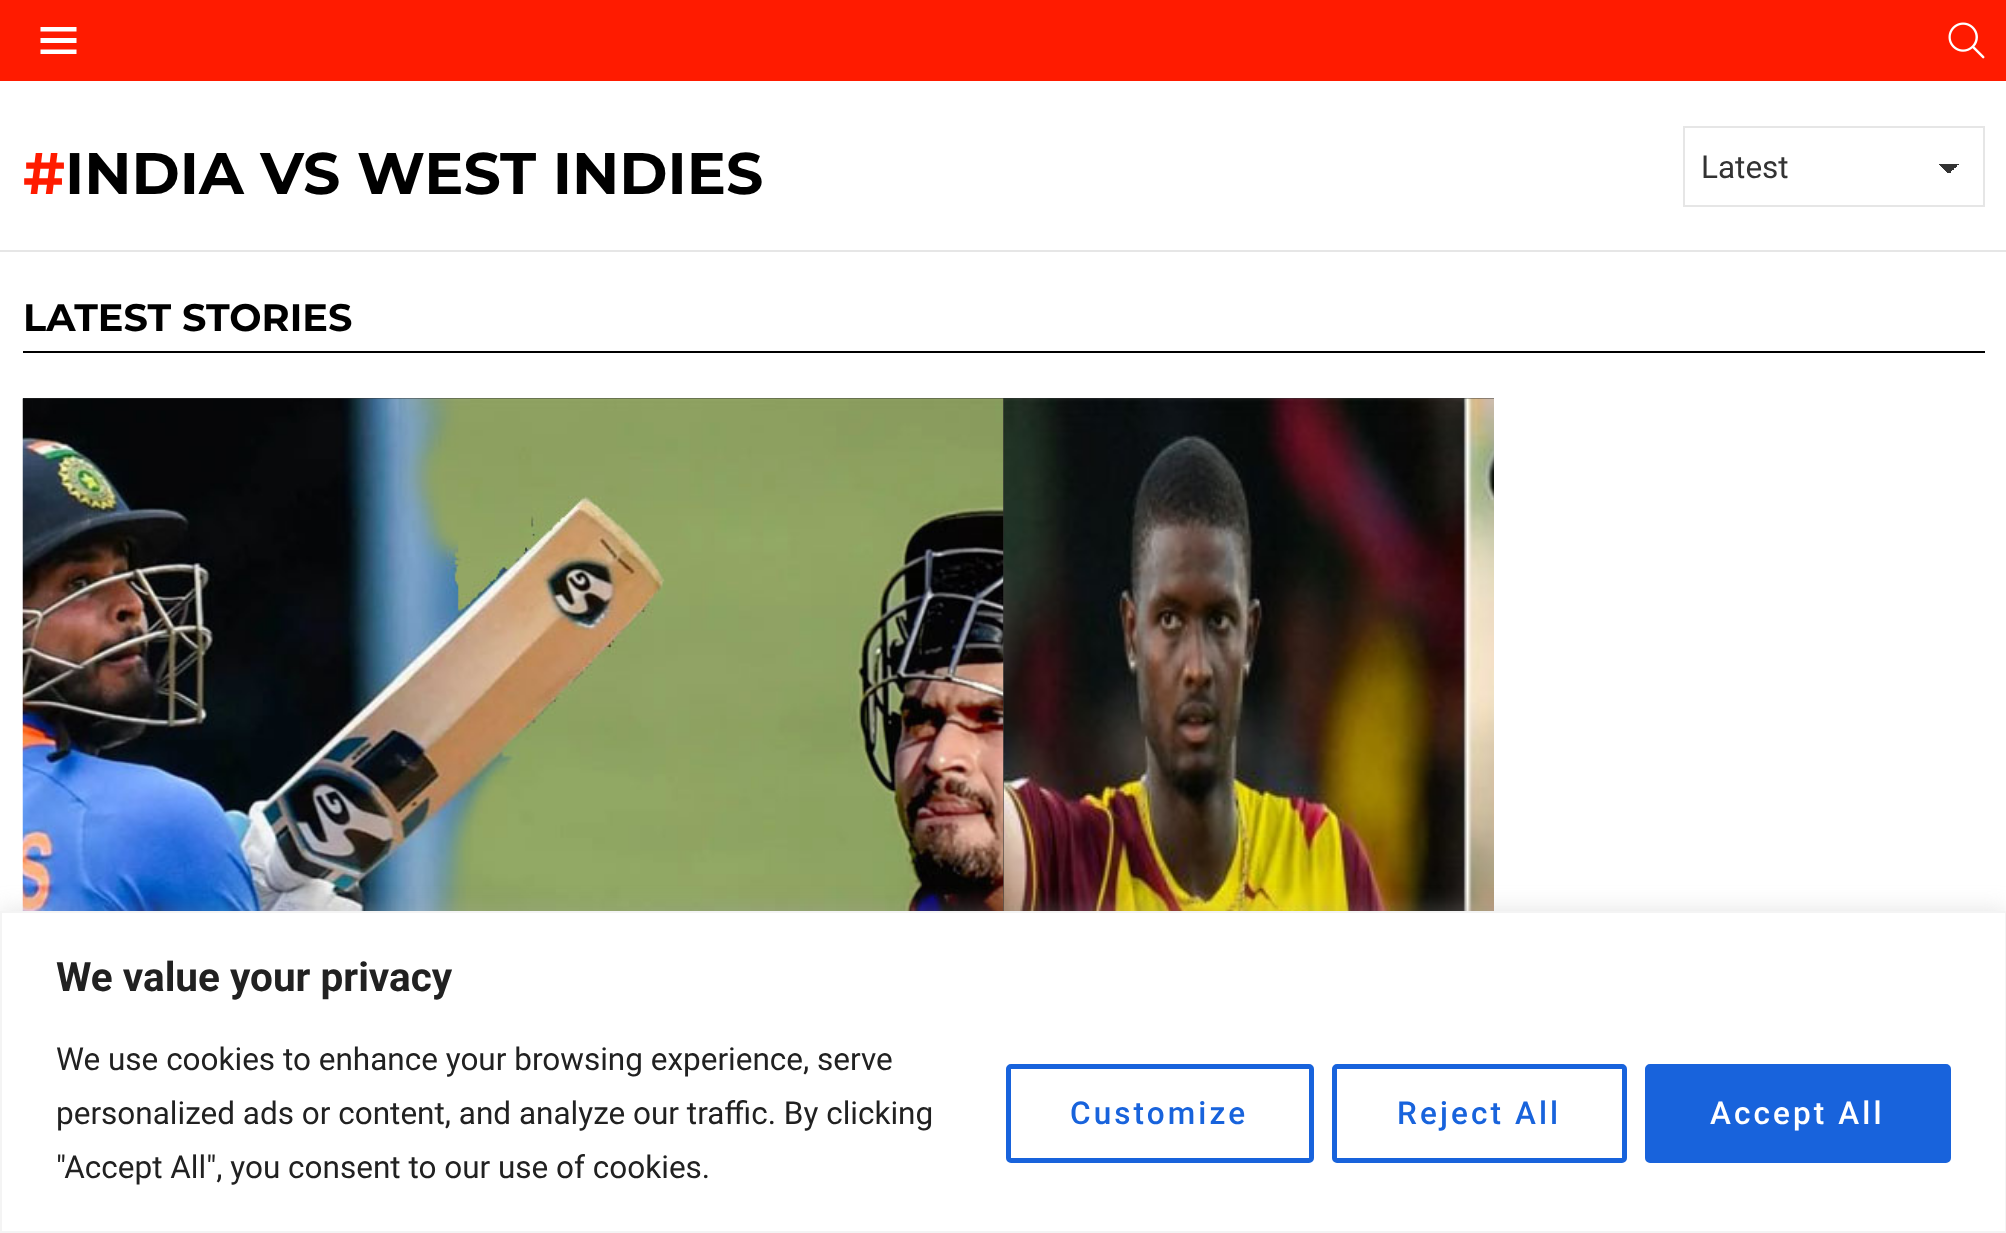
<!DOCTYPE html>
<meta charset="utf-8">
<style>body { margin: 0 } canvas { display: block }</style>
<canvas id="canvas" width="2006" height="1233"></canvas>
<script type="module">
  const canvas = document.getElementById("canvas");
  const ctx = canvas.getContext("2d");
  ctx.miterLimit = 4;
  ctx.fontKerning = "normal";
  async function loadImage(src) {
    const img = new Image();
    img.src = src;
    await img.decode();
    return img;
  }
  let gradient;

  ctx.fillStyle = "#ffffff";
  ctx.fillRect(0, 0, 2006, 1233);
  ctx.fillStyle = "#ff1b00";
  ctx.fillRect(0, 0, 2006, 81);
  ctx.fillStyle = "#ffffff";
  ctx.beginPath();
  ctx.moveTo(40.5, 27);
  ctx.lineTo(76.5, 27);
  ctx.lineTo(76.5, 31.5);
  ctx.lineTo(40.5, 31.5);
  ctx.closePath();
  ctx.moveTo(40.5, 38);
  ctx.lineTo(76.5, 38);
  ctx.lineTo(76.5, 43);
  ctx.lineTo(40.5, 43);
  ctx.closePath();
  ctx.moveTo(40.5, 49.5);
  ctx.lineTo(76.5, 49.5);
  ctx.lineTo(76.5, 54);
  ctx.lineTo(40.5, 54);
  ctx.closePath();
  ctx.fill();
  ctx.drawImage(await loadImage("img1.png"), 1948, 22, 37, 37);
  ctx.font = "bold 58.5px Montserrat";
  ctx.fillStyle = "#ff1b00";
  ctx.fillText("#", 23, 194);
  ctx.fillStyle = "#000000";
  ctx.fillText("INDIA VS WEST INDIES", 65, 194);
  gradient = ctx.createLinearGradient(1949, 164, 1959, 174);
  gradient.addColorStop(0.5, "#333333");
  gradient.addColorStop(0.5, "#ffffff");
  ctx.fillStyle = gradient;
  ctx.fillRect(1949, 164, 10, 9);
  gradient = ctx.createLinearGradient(1938, 174, 1948, 164);
  gradient.addColorStop(0.5, "#ffffff");
  gradient.addColorStop(0.5, "#333333");
  ctx.fillStyle = gradient;
  ctx.fillRect(1939, 164, 10, 9);
  ctx.strokeStyle = "#e6e6e6";
  ctx.lineWidth = 2;
  ctx.strokeRect(1684, 127, 300, 79);
  ctx.font = "31.5px Roboto";
  ctx.fillStyle = "#333333";
  ctx.fillText("Latest", 1701, 178);
  ctx.fillStyle = "#e6e6e6";
  ctx.fillRect(0, 250, 2006, 2);
  ctx.fillStyle = "#000000";
  ctx.fillRect(23, 351, 1962, 2);
  ctx.font = "bold 38.25px Montserrat";
  ctx.fillText("LATEST STORIES", 23, 331);
  ctx.fillStyle = "#333333";
  ctx.fillRect(23, 398, 981, 513);
  ctx.drawImage(await loadImage("img2.png"), 22, 398, 982, 513);
  ctx.fillRect(1004, 398, 490, 1);
  ctx.drawImage(await loadImage("img3.png"), 1003, 398, 491, 513);
  ctx.fillStyle = "rgba(172, 171, 171, 0.3)";
  ctx.filter = "blur(11px)";
  ctx.beginPath();
  ctx.rect(0, 909, 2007, 322);
  ctx.fill();
  ctx.filter = "none";
  ctx.fillStyle = "#ffffff";
  ctx.beginPath();
  ctx.rect(1, 912, 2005, 320);
  ctx.fill();
  ctx.strokeStyle = "#f4f4f4";
  ctx.stroke();
  ctx.font = "bold 40.5px Roboto";
  ctx.fillStyle = "#212121";
  ctx.fillText("We value your privacy", 56, 991);
  ctx.font = "31.5px Roboto";
  ctx.fillText("We use cookies to enhance your browsing experience, serve", 56, 1070);
  ctx.fillText("personalized ads or content, and analyze our traffic. By clicking", 56, 1124);
  ctx.fillText("\"Accept All\", you consent to our use of cookies.", 56, 1178);
  ctx.beginPath();
  ctx.roundRect(1008.5, 1066.5, 303, 94, 2.5);
  ctx.strokeStyle = "#1863dc";
  ctx.lineWidth = 5;
  ctx.stroke();
  ctx.letterSpacing = "3.1px";
  ctx.font = "500 31.5px Roboto";
  ctx.fillStyle = "#1863dc";
  ctx.fillText("Customize", 1070, 1124);
  ctx.beginPath();
  ctx.roundRect(1334.5, 1066.5, 290, 94, 2.5);
  ctx.stroke();
  ctx.fillText("Reject All", 1397, 1124);
  ctx.beginPath();
  ctx.roundRect(1647.5, 1066.5, 301, 94, 2.5);
  ctx.fill();
  ctx.stroke();
  ctx.fillStyle = "#ffffff";
  ctx.fillText("Accept All", 1710, 1124);
</script>
